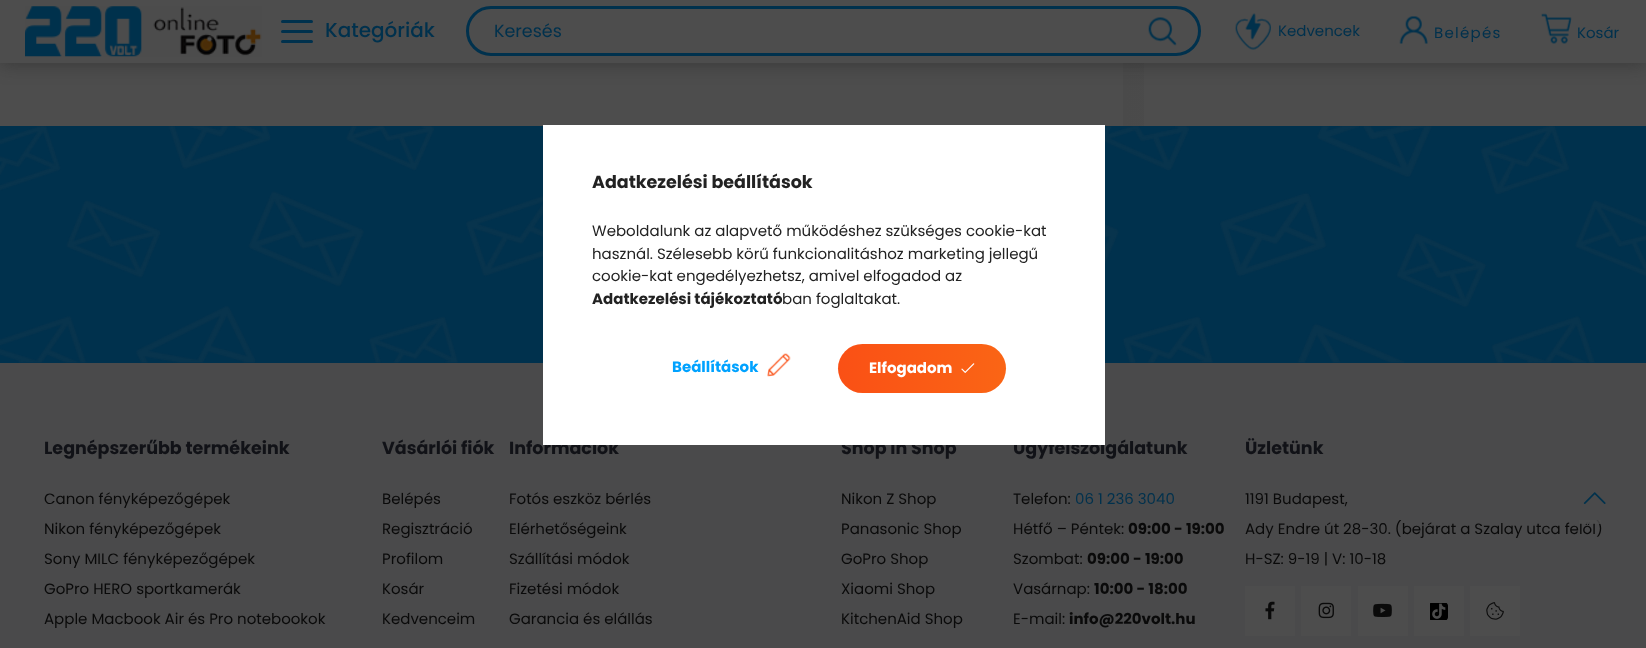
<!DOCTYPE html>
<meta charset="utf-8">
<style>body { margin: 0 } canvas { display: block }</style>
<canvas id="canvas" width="1646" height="648"></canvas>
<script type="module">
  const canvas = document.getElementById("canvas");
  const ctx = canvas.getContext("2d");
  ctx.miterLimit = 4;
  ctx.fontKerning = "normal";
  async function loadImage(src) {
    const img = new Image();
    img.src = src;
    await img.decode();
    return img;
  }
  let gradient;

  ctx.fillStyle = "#4d4d4d";
  ctx.fillRect(0, 0, 1646, 648);
  gradient = ctx.createLinearGradient(1123, -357, 1621, -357);
  gradient.addColorStop(0, "#4a4a4a");
  gradient.addColorStop(0.25, "#4d4d4d");
  gradient.addColorStop(1, "#4d4d4d");
  ctx.fillStyle = gradient;
  ctx.fillRect(1123, 63, 21, 63);
  ctx.fillStyle = "rgba(38, 38, 38, 0.6)";
  ctx.filter = "blur(9.5px)";
  ctx.beginPath();
  ctx.rect(0, 0, 1646, 63);
  ctx.fill();
  ctx.filter = "none";
  ctx.fillStyle = "#4d4d4d";
  ctx.fillRect(0, 0, 1646, 63);
  ctx.drawImage(await loadImage("img1.png"), 25, 6, 237, 51);
  ctx.fillStyle = "#00314d";
  ctx.beginPath();
  ctx.roundRect(281, 20, 32, 3, 1.5);
  ctx.fill();
  ctx.beginPath();
  ctx.roundRect(281, 30, 32, 3, 1.5);
  ctx.fill();
  ctx.beginPath();
  ctx.roundRect(281, 40, 32, 3, 1.5);
  ctx.fill();
  ctx.font = "500 20px Poppins";
  ctx.fillText("Kategóriák", 325, 37);
  ctx.beginPath();
  ctx.roundRect(467.5, 7.5, 732, 47, 23.5);
  ctx.strokeStyle = "#00314d";
  ctx.lineWidth = 3;
  ctx.stroke();
  ctx.font = "17.5px Poppins";
  ctx.fillText("Keresés", 494, 37);
  ctx.drawImage(await loadImage("img2.png"), 1148, 17, 29, 29);
  ctx.drawImage(await loadImage("img3.png"), 1235, 13, 36, 37);
  ctx.font = "15px Poppins";
  ctx.fillText("Kedvencek", 1278, 36);
  ctx.drawImage(await loadImage("img4.png"), 1399, 16, 29, 28);
  ctx.letterSpacing = "1.25px";
  ctx.fillText("Belépés", 1434, 38);
  ctx.drawImage(await loadImage("img5.png"), 1541, 13, 31, 31);
  ctx.letterSpacing = "0px";
  ctx.fillText("Kosár", 1577, 38);
  ctx.fillRect(0, 126, 1646, 237);
  ctx.drawImage(await loadImage("img6.png"), 0, 126, 1646, 237);
  ctx.fillStyle = "#4a4a4b";
  ctx.fillRect(0, 363, 1646, 285);
  ctx.font = "bold 17.5px Poppins";
  ctx.fillStyle = "#111217";
  ctx.fillText("Legnépszerűbb termékeink", 44, 454);
  ctx.font = "15px Poppins";
  ctx.fillStyle = "#0a0a0a";
  ctx.fillText("Canon fényképezőgépek", 44, 504);
  ctx.fillText("Nikon fényképezőgépek", 44, 534);
  ctx.fillText("Sony MILC fényképezőgépek", 44, 564);
  ctx.fillText("GoPro HERO sportkamerák", 44, 594);
  ctx.fillText("Apple Macbook Air és Pro notebookok", 44, 624);
  ctx.font = "bold 17.5px Poppins";
  ctx.fillStyle = "#111217";
  ctx.fillText("Vásárlói fiók", 382, 454);
  ctx.font = "15px Poppins";
  ctx.fillStyle = "#0a0a0a";
  ctx.fillText("Belépés", 382, 504);
  ctx.fillText("Regisztráció", 382, 534);
  ctx.fillText("Profilom", 382, 564);
  ctx.fillText("Kosár", 382, 594);
  ctx.fillText("Kedvenceim", 382, 624);
  ctx.font = "bold 17.5px Poppins";
  ctx.fillStyle = "#111217";
  ctx.fillText("Információk", 509, 454);
  ctx.font = "15px Poppins";
  ctx.fillStyle = "#0a0a0a";
  ctx.fillText("Fotós eszköz bérlés", 509, 504);
  ctx.fillText("Elérhetőségeink", 509, 534);
  ctx.fillText("Szállítási módok", 509, 564);
  ctx.fillText("Fizetési módok", 509, 594);
  ctx.fillText("Garancia és elállás", 509, 624);
  ctx.font = "bold 17.5px Poppins";
  ctx.fillStyle = "#111217";
  ctx.fillText("Shop in Shop", 841, 454);
  ctx.font = "15px Poppins";
  ctx.fillStyle = "#0a0a0a";
  ctx.fillText("Nikon Z Shop", 841, 504);
  ctx.fillText("Panasonic Shop", 841, 534);
  ctx.fillText("GoPro Shop", 841, 564);
  ctx.fillText("Xiaomi Shop", 841, 594);
  ctx.fillText("KitchenAid Shop", 841, 624);
  ctx.font = "bold 17.5px Poppins";
  ctx.fillStyle = "#111217";
  ctx.fillText("Ügyfélszolgálatunk", 1013, 454);
  ctx.font = "15px Poppins";
  ctx.fillStyle = "#0a0a0a";
  ctx.fillText("Telefon:", 1013, 504);
  ctx.fillStyle = "#00314d";
  ctx.fillText("06 1 236 3040", 1075, 504);
  ctx.fillStyle = "#0a0a0a";
  ctx.fillText("Hétfő – Péntek:", 1013, 534);
  ctx.font = "bold 15px Poppins";
  ctx.fillText("09:00 - 19:00", 1128, 534);
  ctx.font = "15px Poppins";
  ctx.fillText("Szombat:", 1013, 564);
  ctx.font = "bold 15px Poppins";
  ctx.fillText("09:00 - 19:00", 1087, 564);
  ctx.font = "15px Poppins";
  ctx.fillText("Vasárnap:", 1013, 594);
  ctx.font = "bold 15px Poppins";
  ctx.fillText("10:00 - 18:00", 1094, 594);
  ctx.font = "15px Poppins";
  ctx.fillText("E-mail:", 1013, 624);
  ctx.font = "bold 15px Poppins";
  ctx.fillText("info@220volt.hu", 1069, 624);
  ctx.font = "bold 17.5px Poppins";
  ctx.fillStyle = "#111217";
  ctx.fillText("Üzletünk", 1245, 454);
  ctx.font = "15px Poppins";
  ctx.fillStyle = "#0a0a0a";
  ctx.fillText("1191 Budapest,", 1245, 504);
  ctx.fillText("Ady Endre út 28-30. (bejárat a Szalay utca felől)", 1245, 534);
  ctx.fillText("H-SZ: 9-19 | V: 10-18", 1245, 564);
  ctx.fillStyle = "#4d4d4d";
  ctx.fillRect(1245, 586, 50, 50);
  ctx.drawImage(await loadImage("img7.png"), 1265, 601, 10, 19);
  ctx.fillRect(1301, 586, 50, 50);
  ctx.drawImage(await loadImage("img8.png"), 1318, 602, 16, 17);
  ctx.fillRect(1358, 586, 50, 50);
  ctx.drawImage(await loadImage("img9.png"), 1373, 603, 19, 14);
  ctx.fillRect(1414, 586, 50, 50);
  ctx.drawImage(await loadImage("img10.png"), 1430, 603, 18, 17);
  ctx.fillRect(1470, 586, 50, 50);
  ctx.drawImage(await loadImage("img11.png"), 1486, 602, 18, 18);
  ctx.fillStyle = "#ffffff";
  ctx.fillRect(543, 125, 562, 320);
  ctx.font = "bold 17.5px Poppins";
  ctx.fillStyle = "#222222";
  ctx.fillText("Adatkezelési beállítások", 592, 188);
  ctx.font = "15px Poppins";
  ctx.fillText("Weboldalunk az alapvető működéshez szükséges cookie-kat", 592, 236);
  ctx.fillText("használ. Szélesebb körű funkcionalitáshoz marketing jellegű", 592, 259);
  ctx.fillText("cookie-kat engedélyezhetsz, amivel elfogadod az", 592, 281);
  ctx.font = "bold 15px Poppins";
  ctx.fillText("Adatkezelési tájékoztató", 592, 304);
  ctx.font = "15px Poppins";
  ctx.fillText("ban foglaltakat.", 782, 304);
  ctx.font = "bold 15px Poppins";
  ctx.fillStyle = "#00a2ff";
  ctx.fillText("Beállítások", 672, 372);
  ctx.drawImage(await loadImage("img12.png"), 767, 353, 24, 24);
  gradient = ctx.createLinearGradient(500, 368, 1006, 368);
  gradient.addColorStop(0, "#c33200");
  gradient.addColorStop(0.33, "#c33200");
  gradient.addColorStop(0.67, "#fa5015");
  gradient.addColorStop(1, "#fa6515");
  ctx.fillStyle = gradient;
  ctx.beginPath();
  ctx.roundRect(838, 344, 168, 49, 24.5);
  ctx.fill();
  ctx.fillStyle = "#ffffff";
  ctx.fillText("Elfogadom", 869, 373);
  ctx.drawImage(await loadImage("img13.png"), 961, 363, 14, 10);
  ctx.fillStyle = "rgba(77, 77, 77, 0.8)";
  ctx.fillRect(1579, 520, 22, 4);
  ctx.drawImage(await loadImage("img14.png"), 1583, 492, 23, 12);
</script>
